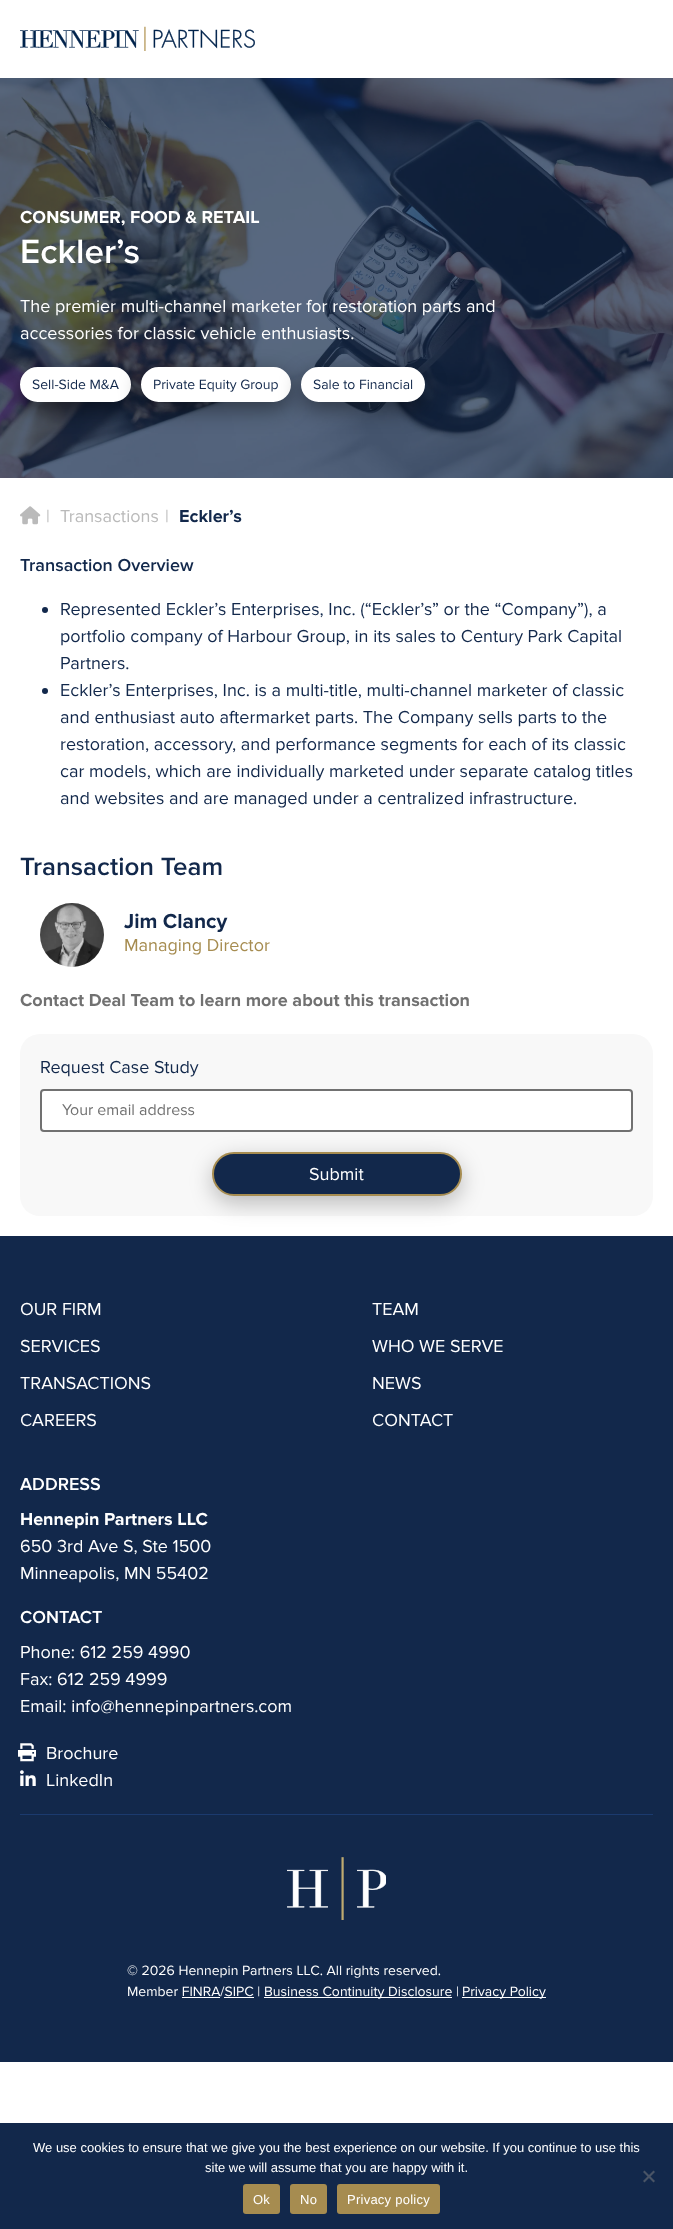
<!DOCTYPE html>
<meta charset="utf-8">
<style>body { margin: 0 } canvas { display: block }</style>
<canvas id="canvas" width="673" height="2229"></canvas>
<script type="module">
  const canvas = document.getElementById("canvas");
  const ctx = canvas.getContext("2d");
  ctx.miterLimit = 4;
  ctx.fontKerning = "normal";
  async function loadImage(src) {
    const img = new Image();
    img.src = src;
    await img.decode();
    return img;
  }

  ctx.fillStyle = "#ffffff";
  ctx.fillRect(0, 0, 673, 2229);
  ctx.drawImage(await loadImage("img1.png"), 20, 26, 235, 25);
  ctx.drawImage(await loadImage("img2.png"), 0, 78, 673, 400);
  ctx.font = "bold 18px Proxima Nova";
  ctx.fillText("CONSUMER, FOOD & RETAIL", 20, 223);
  ctx.font = "600 35px Proxima Nova";
  ctx.fillText("Eckler’s", 20, 263);
  ctx.font = "18px Proxima Nova";
  ctx.fillText("The premier multi-channel marketer for restoration parts and", 20, 312);
  ctx.fillText("accessories for classic vehicle enthusiasts.", 20, 339);
  ctx.fillStyle = "rgba(0, 0, 0, 0.45)";
  ctx.filter = "blur(11px)";
  ctx.beginPath();
  ctx.roundRect(20, 374, 111, 35, 17.5);
  ctx.fill();
  ctx.filter = "none";
  ctx.fillStyle = "#ffffff";
  ctx.beginPath();
  ctx.roundRect(21, 368, 109, 33, 16.5);
  ctx.fill();
  ctx.strokeStyle = "#ffffff";
  ctx.lineWidth = 2;
  ctx.stroke();
  ctx.font = "14px Proxima Nova";
  ctx.fillStyle = "#12284b";
  ctx.fillText("Sell-Side M&A", 32, 389);
  ctx.fillStyle = "rgba(0, 0, 0, 0.45)";
  ctx.filter = "blur(11px)";
  ctx.beginPath();
  ctx.roundRect(141, 374, 150, 35, 17.5);
  ctx.fill();
  ctx.filter = "none";
  ctx.fillStyle = "#ffffff";
  ctx.beginPath();
  ctx.roundRect(142, 368, 148, 33, 16.5);
  ctx.fill();
  ctx.stroke();
  ctx.fillStyle = "#12284b";
  ctx.fillText("Private Equity Group", 153, 389);
  ctx.fillStyle = "rgba(0, 0, 0, 0.45)";
  ctx.filter = "blur(11px)";
  ctx.beginPath();
  ctx.roundRect(301, 374, 124, 35, 17.5);
  ctx.fill();
  ctx.filter = "none";
  ctx.fillStyle = "#ffffff";
  ctx.beginPath();
  ctx.roundRect(302, 368, 122, 33, 16.5);
  ctx.fill();
  ctx.stroke();
  ctx.fillStyle = "#12284b";
  ctx.fillText("Sale to Financial", 313, 389);
  ctx.drawImage(await loadImage("img3.png"), 20, 506, 21, 19);
  ctx.font = "18px Proxima Nova";
  ctx.fillStyle = "#bababa";
  ctx.fillText("|", 46, 522);
  ctx.fillText("Transactions", 60, 522);
  ctx.fillText("|", 165, 522);
  ctx.font = "bold 18px Proxima Nova";
  ctx.fillStyle = "#12284b";
  ctx.fillText("Eckler’s", 179, 522);
  ctx.font = "600 18px Proxima Nova";
  ctx.fillText("Transaction Overview", 20, 571);
  ctx.beginPath();
  ctx.arc(45, 610, 3, 0, Math.PI * 2);
  ctx.fill();
  ctx.font = "18px Proxima Nova";
  ctx.fillText("Represented Eckler’s Enterprises, Inc. (“Eckler’s” or the “Company”), a", 60, 615);
  ctx.fillText("portfolio company of Harbour Group, in its sales to Century Park Capital", 60, 642);
  ctx.fillText("Partners.", 60, 669);
  ctx.beginPath();
  ctx.arc(45, 691, 3, 0, Math.PI * 2);
  ctx.fill();
  ctx.fillText("Eckler’s Enterprises, Inc. is a multi-title, multi-channel marketer of classic", 60, 696);
  ctx.fillText("and enthusiast auto aftermarket parts. The Company sells parts to the", 60, 723);
  ctx.fillText("restoration, accessory, and performance segments for each of its classic", 60, 750);
  ctx.fillText("car models, which are individually marketed under separate catalog titles", 60, 777);
  ctx.fillText("and websites and are managed under a centralized infrastructure.", 60, 804);
  ctx.font = "600 26px Proxima Nova";
  ctx.fillText("Transaction Team", 20, 875);
  ctx.drawImage(await loadImage("img4.png"), 40, 903, 64, 64);
  ctx.font = "bold 21px Proxima Nova";
  ctx.fillText("Jim Clancy", 124, 928);
  ctx.font = "18px Proxima Nova";
  ctx.fillStyle = "#a68c50";
  ctx.fillText("Managing Director", 124, 951);
  ctx.font = "bold 18px Proxima Nova";
  ctx.fillStyle = "#717171";
  ctx.fillText("Contact Deal Team to learn more about this transaction", 20, 1006);
  ctx.fillStyle = "#f8f8f8";
  ctx.beginPath();
  ctx.roundRect(20, 1034, 633, 182, 20);
  ctx.fill();
  ctx.font = "18px Proxima Nova";
  ctx.fillStyle = "#12284b";
  ctx.fillText("Request Case Study", 40, 1073);
  ctx.fillStyle = "#ffffff";
  ctx.beginPath();
  ctx.roundRect(41, 1090, 591, 41, 3);
  ctx.fill();
  ctx.strokeStyle = "#717171";
  ctx.stroke();
  ctx.font = "16px Proxima Nova";
  ctx.fillStyle = "#717171";
  ctx.fillText("Your email address", 62, 1115);
  ctx.fillStyle = "#12284b";
  ctx.fillRect(0, 1236, 673, 826);
  ctx.fillStyle = "rgba(0, 0, 0, 0.25)";
  ctx.filter = "blur(11px)";
  ctx.beginPath();
  ctx.roundRect(212, 1159, 250, 44, 22);
  ctx.fill();
  ctx.filter = "none";
  ctx.fillStyle = "#12284b";
  ctx.beginPath();
  ctx.roundRect(213, 1153, 248, 42, 21);
  ctx.fill();
  ctx.strokeStyle = "#a68c50";
  ctx.stroke();
  ctx.font = "18px Proxima Nova";
  ctx.fillStyle = "#ffffff";
  ctx.fillText("Submit", 309, 1180);
  ctx.fillStyle = "#1b3a6e";
  ctx.fillRect(20, 1814, 633, 1);
  ctx.fillStyle = "#ffffff";
  ctx.fillText("OUR FIRM", 20, 1315);
  ctx.fillText("TEAM", 372, 1315);
  ctx.fillText("SERVICES", 20, 1352);
  ctx.fillText("WHO WE SERVE", 372, 1352);
  ctx.fillText("TRANSACTIONS", 20, 1389);
  ctx.fillText("NEWS", 372, 1389);
  ctx.fillText("CAREERS", 20, 1426);
  ctx.fillText("CONTACT", 372, 1426);
  ctx.font = "600 18px Proxima Nova";
  ctx.fillText("ADDRESS", 20, 1490);
  ctx.font = "bold 18px Proxima Nova";
  ctx.fillText("Hennepin Partners LLC", 20, 1525);
  ctx.font = "18px Proxima Nova";
  ctx.fillText("650 3rd Ave S, Ste 1500", 20, 1552);
  ctx.fillText("Minneapolis, MN 55402", 20, 1579);
  ctx.font = "600 18px Proxima Nova";
  ctx.fillText("CONTACT", 20, 1623);
  ctx.font = "18px Proxima Nova";
  ctx.fillText("Phone: 612 259 4990", 20, 1658);
  ctx.fillText("Fax: 612 259 4999", 20, 1685);
  ctx.fillText("Email: info@hennepinpartners.com", 20, 1712);
  ctx.drawImage(await loadImage("img5.png"), 18, 1743, 18, 19);
  ctx.fillText("Brochure", 46, 1759);
  ctx.drawImage(await loadImage("img6.png"), 20, 1770, 16, 16);
  ctx.fillText("LinkedIn", 46, 1786);
  ctx.drawImage(await loadImage("img7.png"), 287, 1857, 99, 63);
  ctx.font = "14px Proxima Nova";
  ctx.fillText("© 2026 Hennepin Partners LLC. All rights reserved.", 127, 1975);
  ctx.fillText("Member FINRA/SIPC |", 127, 1996);
  ctx.fillRect(264, 1997, 188, 1);
  ctx.fillText("Business Continuity Disclosure |", 264, 1996);
  ctx.fillRect(462, 1997, 84, 1);
  ctx.fillText("Privacy Policy", 462, 1996);
  ctx.fillRect(182, 1997, 38, 1);
  ctx.fillRect(224, 1997, 30, 1);
  ctx.fillStyle = "#12284b";
  ctx.fillRect(0, 2123, 673, 106);
  ctx.font = "13px Liberation Sans";
  ctx.fillStyle = "#ffffff";
  ctx.fillText("We use cookies to ensure that we give you the best experience on our website. If you continue to use this", 33, 2152);
  ctx.fillText("site we will assume that you are happy with it.", 205, 2172);
  ctx.fillStyle = "#495466";
  ctx.beginPath();
  ctx.moveTo(653.5, 2170.5);
  ctx.lineTo(655, 2172);
  ctx.lineTo(644.5, 2182.5);
  ctx.lineTo(643, 2181);
  ctx.closePath();
  ctx.fill();
  ctx.beginPath();
  ctx.moveTo(643, 2172);
  ctx.lineTo(644.5, 2170.5);
  ctx.lineTo(655, 2181);
  ctx.lineTo(653.5, 2182.5);
  ctx.closePath();
  ctx.fill();
  ctx.fillStyle = "#a68c50";
  ctx.beginPath();
  ctx.roundRect(243, 2184, 37, 30, 3);
  ctx.fill();
  ctx.letterSpacing = "0.25px";
  ctx.fillStyle = "#ffffff";
  ctx.fillText("Ok", 253, 2204);
  ctx.fillStyle = "#a68c50";
  ctx.beginPath();
  ctx.roundRect(290, 2184, 37, 30, 3);
  ctx.fill();
  ctx.fillStyle = "#ffffff";
  ctx.fillText("No", 300, 2204);
  ctx.fillStyle = "#a68c50";
  ctx.beginPath();
  ctx.roundRect(337, 2184, 103, 30, 3);
  ctx.fill();
  ctx.fillStyle = "#ffffff";
  ctx.fillText("Privacy policy", 347, 2204);
</script>
